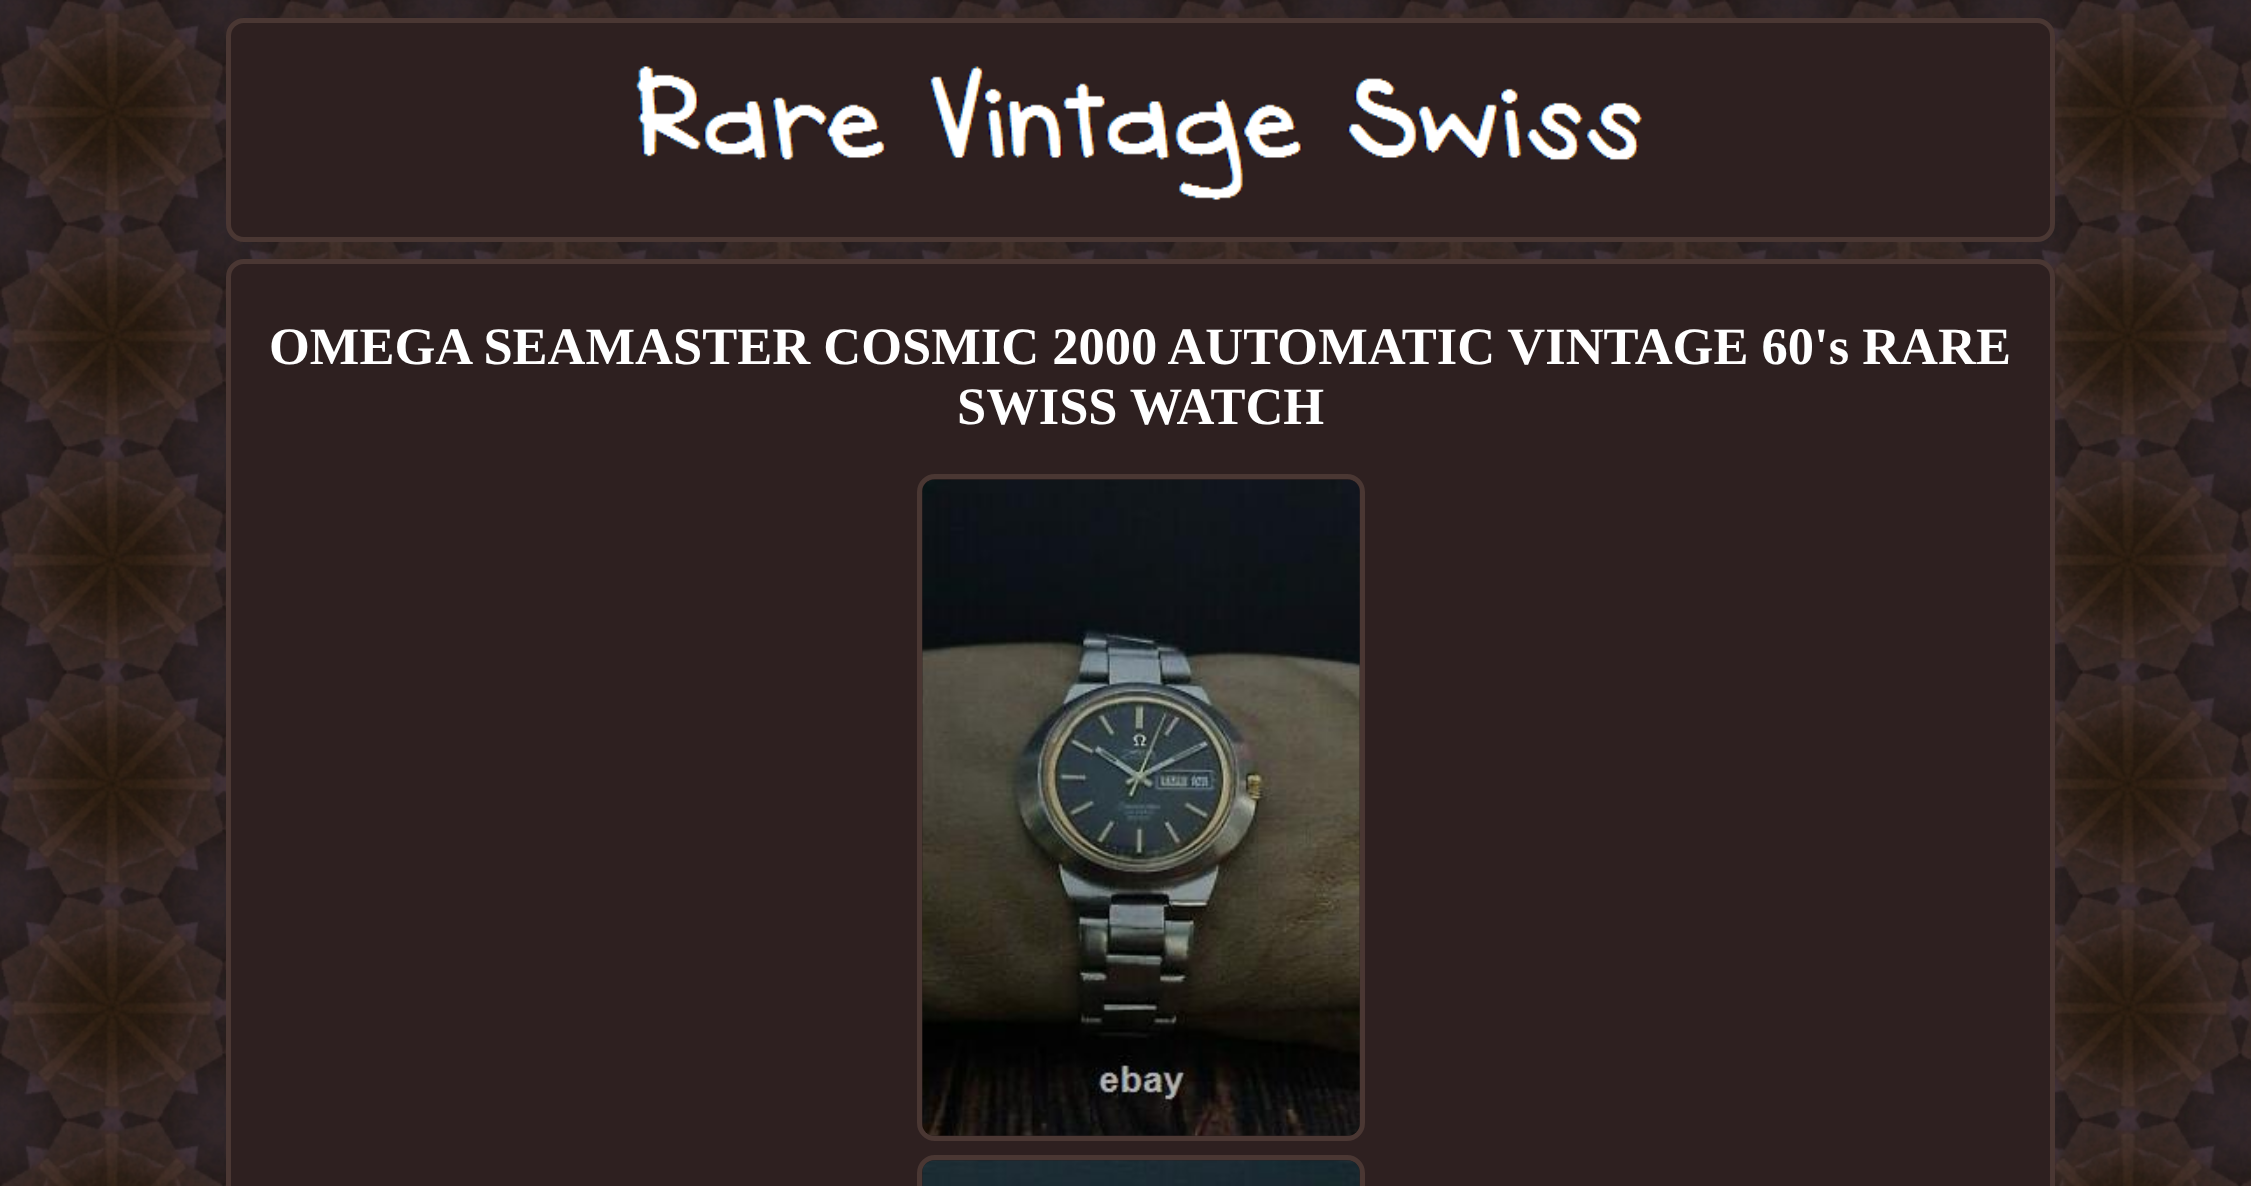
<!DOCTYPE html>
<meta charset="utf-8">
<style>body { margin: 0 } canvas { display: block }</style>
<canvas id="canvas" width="2251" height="1186"></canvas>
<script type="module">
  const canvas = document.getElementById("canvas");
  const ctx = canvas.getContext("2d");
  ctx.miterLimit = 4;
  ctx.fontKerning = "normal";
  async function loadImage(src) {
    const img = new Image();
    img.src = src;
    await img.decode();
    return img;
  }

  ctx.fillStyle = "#ffffff";
  ctx.fillRect(0, 0, 2251, 1186);
  ctx.drawImage(await loadImage("img1.png"), 0, 0, 2251, 1186);
  ctx.fillStyle = "#2e2020";
  ctx.beginPath();
  ctx.roundRect(228.5, 20.5, 1824, 219, 15.5);
  ctx.fill();
  ctx.strokeStyle = "#4a3733";
  ctx.lineWidth = 5;
  ctx.stroke();
  ctx.drawImage(await loadImage("img2.png"), 636, 66, 1006, 134);
  ctx.beginPath();
  ctx.roundRect(228.5, 261.5, 1824, 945, 15.5);
  ctx.fill();
  ctx.stroke();
  ctx.font = "bold 52.5px Liberation Serif";
  ctx.fillStyle = "#ffffff";
  ctx.fillText("OMEGA SEAMASTER COSMIC 2000 AUTOMATIC VINTAGE 60's RARE", 269, 364);
  ctx.fillText("SWISS WATCH", 957, 424);
  ctx.beginPath();
  ctx.roundRect(919.5, 476.5, 443, 662, 15.5);
  ctx.stroke();
  ctx.drawImage(await loadImage("img3.png"), 922, 479, 438, 657);
  ctx.beginPath();
  ctx.roundRect(919.5, 1157.5, 443, 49, 15.5);
  ctx.stroke();
  ctx.drawImage(await loadImage("img4.png"), 922, 1160, 438, 26);
</script>
